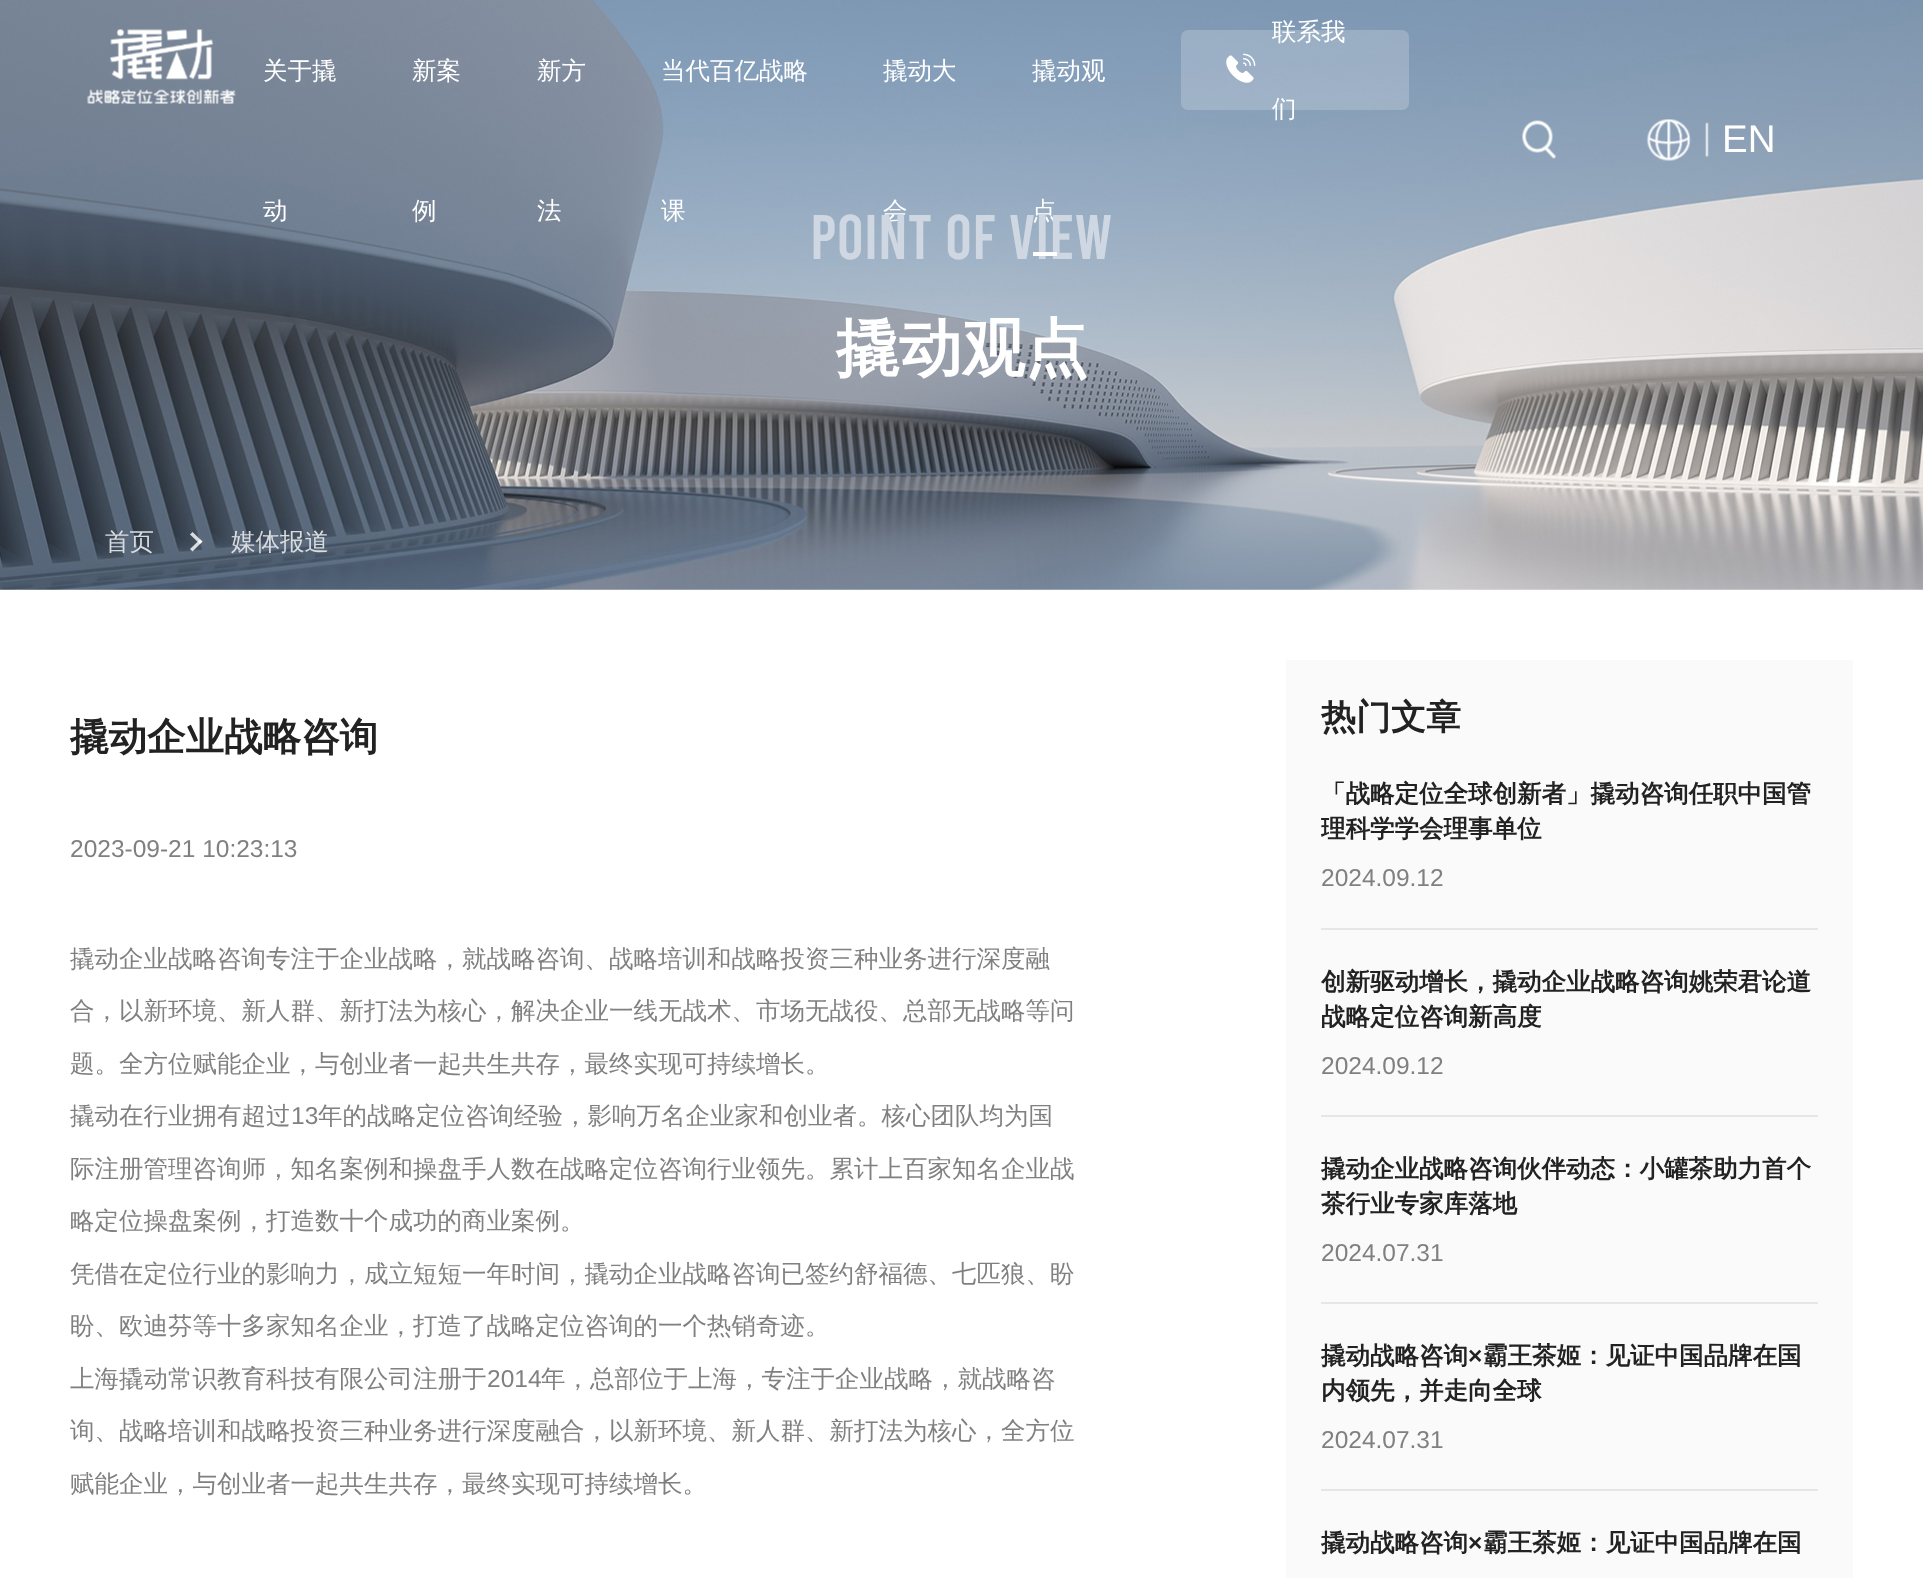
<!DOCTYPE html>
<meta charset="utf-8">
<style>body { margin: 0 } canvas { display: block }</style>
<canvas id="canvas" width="1923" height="1578"></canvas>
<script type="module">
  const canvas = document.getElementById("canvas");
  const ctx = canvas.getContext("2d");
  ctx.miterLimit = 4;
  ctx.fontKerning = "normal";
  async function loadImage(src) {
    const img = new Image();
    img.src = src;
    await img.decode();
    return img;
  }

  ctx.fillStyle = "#ffffff";
  ctx.fillRect(0, 0, 1923, 1578);
  ctx.drawImage(await loadImage("img5.png"), 0, 0, 1923, 590);
  ctx.drawImage(await loadImage("img1.png"), 87, 29, 149, 75);
  ctx.font = "500 24.5px WenQuanYi Zen Hei";
  ctx.fillText("关于撬", 263, 79);
  ctx.fillText("动", 263, 219);
  ctx.fillText("新案", 412, 79);
  ctx.fillText("例", 412, 219);
  ctx.fillText("新方", 537, 79);
  ctx.fillText("法", 537, 219);
  ctx.fillText("当代百亿战略", 661, 79);
  ctx.fillText("课", 661, 219);
  ctx.fillText("撬动大", 883, 79);
  ctx.fillText("会", 883, 219);
  ctx.fillText("撬动观", 1032, 79);
  ctx.fillText("点", 1032, 219);
  ctx.font = "63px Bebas";
  ctx.fillStyle = "#ced7e2";
  ctx.fillText("POINT OF VIEW", 810, 259);
  ctx.fillStyle = "#ffffff";
  ctx.fillRect(1033, 252, 24, 4);
  ctx.fillStyle = "rgba(255, 255, 255, 0.2)";
  ctx.beginPath();
  ctx.roundRect(1181, 30, 228, 80, 7);
  ctx.fill();
  ctx.font = "500 24.5px WenQuanYi Zen Hei";
  ctx.fillStyle = "#ffffff";
  ctx.fillText("联系我", 1272, 40);
  ctx.drawImage(await loadImage("img2.png"), 1226, 53, 30, 30);
  ctx.fillText("们", 1272, 117);
  ctx.drawImage(await loadImage("img3.png"), 1522, 120, 35, 39);
  ctx.drawImage(await loadImage("img4.png"), 1646, 119, 63, 42);
  ctx.font = "38.5px Liberation Sans";
  ctx.fillText("EN", 1722, 152);
  ctx.font = "bold 63px WenQuanYi Zen Hei";
  ctx.fillText("撬动观点", 836, 370);
  ctx.font = "500 24.5px WenQuanYi Zen Hei";
  ctx.fillStyle = "#d9dcdf";
  ctx.fillText("首页", 105, 550);
  ctx.fillStyle = "rgba(255, 255, 255, 0.8)";
  ctx.beginPath();
  ctx.moveTo(192.5, 532);
  ctx.lineTo(202.5, 541.5);
  ctx.lineTo(200, 544);
  ctx.lineTo(190, 534.5);
  ctx.closePath();
  ctx.fill();
  ctx.beginPath();
  ctx.moveTo(200, 539.5);
  ctx.lineTo(202.5, 541.5);
  ctx.lineTo(192.5, 551.5);
  ctx.lineTo(190, 549);
  ctx.closePath();
  ctx.fill();
  ctx.fillStyle = "#d9dcdf";
  ctx.fillText("媒体报道", 231, 550);
  ctx.font = "bold 38.5px WenQuanYi Zen Hei";
  ctx.fillStyle = "#222222";
  ctx.fillText("撬动企业战略咨询", 70, 750);
  ctx.font = "24.5px Liberation Sans";
  ctx.fillStyle = "#808080";
  ctx.fillText("2023-09-21 10:23:13", 70, 857);
  ctx.font = "500 24.5px WenQuanYi Zen Hei";
  ctx.fillText("撬动企业战略咨询专注于企业战略，就战略咨询、战略培训和战略投资三种业务进行深度融", 70, 967);
  ctx.fillText("合，以新环境、新人群、新打法为核心，解决企业一线无战术、市场无战役、总部无战略等问", 70, 1019);
  ctx.fillText("题。全方位赋能企业，与创业者一起共生共存，最终实现可持续增长。", 70, 1072);
  ctx.fillText("撬动在行业拥有超过", 70, 1124);
  ctx.font = "24.5px Liberation Sans";
  ctx.fillText("13", 291, 1124);
  ctx.font = "500 24.5px WenQuanYi Zen Hei";
  ctx.fillText("年的战略定位咨询经验，影响万名企业家和创业者。核心团队均为国", 318, 1124);
  ctx.fillText("际注册管理咨询师，知名案例和操盘手人数在战略定位咨询行业领先。累计上百家知名企业战", 70, 1177);
  ctx.fillText("略定位操盘案例，打造数十个成功的商业案例。", 70, 1229);
  ctx.fillText("凭借在定位行业的影响力，成立短短一年时间，撬动企业战略咨询已签约舒福德、七匹狼、盼", 70, 1282);
  ctx.fillText("盼、欧迪芬等十多家知名企业，打造了战略定位咨询的一个热销奇迹。", 70, 1334);
  ctx.fillText("上海撬动常识教育科技有限公司注册于", 70, 1387);
  ctx.font = "24.5px Liberation Sans";
  ctx.fillText("2014", 487, 1387);
  ctx.font = "500 24.5px WenQuanYi Zen Hei";
  ctx.fillText("年，总部位于上海，专注于企业战略，就战略咨", 541, 1387);
  ctx.fillText("询、战略培训和战略投资三种业务进行深度融合，以新环境、新人群、新打法为核心，全方位", 70, 1439);
  ctx.fillText("赋能企业，与创业者一起共生共存，最终实现可持续增长。", 70, 1492);
  ctx.fillStyle = "#fafafa";
  ctx.fillRect(1286, 660, 567, 918);
  ctx.font = "bold 35px WenQuanYi Zen Hei";
  ctx.fillStyle = "#222222";
  ctx.fillText("热门文章", 1321, 729);
  ctx.fillStyle = "#e6e6e6";
  ctx.fillRect(1321, 928, 497, 2);
  ctx.font = "bold 24.5px WenQuanYi Zen Hei";
  ctx.fillStyle = "#222222";
  ctx.fillText("「战略定位全球创新者」撬动咨询任职中国管", 1321, 802);
  ctx.fillText("理科学学会理事单位", 1321, 837);
  ctx.font = "24.5px Liberation Sans";
  ctx.fillStyle = "#808080";
  ctx.fillText("2024.09.12", 1321, 886);
  ctx.fillStyle = "#e6e6e6";
  ctx.fillRect(1321, 1115, 497, 2);
  ctx.font = "bold 24.5px WenQuanYi Zen Hei";
  ctx.fillStyle = "#222222";
  ctx.fillText("创新驱动增长，撬动企业战略咨询姚荣君论道", 1321, 990);
  ctx.fillText("战略定位咨询新高度", 1321, 1025);
  ctx.font = "24.5px Liberation Sans";
  ctx.fillStyle = "#808080";
  ctx.fillText("2024.09.12", 1321, 1074);
  ctx.fillStyle = "#e6e6e6";
  ctx.fillRect(1321, 1302, 497, 2);
  ctx.font = "bold 24.5px WenQuanYi Zen Hei";
  ctx.fillStyle = "#222222";
  ctx.fillText("撬动企业战略咨询伙伴动态：小罐茶助力首个", 1321, 1177);
  ctx.fillText("茶行业专家库落地", 1321, 1212);
  ctx.font = "24.5px Liberation Sans";
  ctx.fillStyle = "#808080";
  ctx.fillText("2024.07.31", 1321, 1261);
  ctx.fillStyle = "#e6e6e6";
  ctx.fillRect(1321, 1489, 497, 2);
  ctx.font = "bold 24.5px WenQuanYi Zen Hei";
  ctx.fillStyle = "#222222";
  ctx.fillText("撬动战略咨询", 1321, 1364);
  ctx.font = "bold 24.5px Liberation Sans";
  ctx.fillText("×", 1468, 1364);
  ctx.font = "bold 24.5px WenQuanYi Zen Hei";
  ctx.fillText("霸王茶姬：见证中国品牌在国", 1483, 1364);
  ctx.fillText("内领先，并走向全球", 1321, 1399);
  ctx.font = "24.5px Liberation Sans";
  ctx.fillStyle = "#808080";
  ctx.fillText("2024.07.31", 1321, 1448);
  ctx.font = "bold 24.5px WenQuanYi Zen Hei";
  ctx.fillStyle = "#222222";
  ctx.fillText("撬动战略咨询", 1321, 1551);
  ctx.font = "bold 24.5px Liberation Sans";
  ctx.fillText("×", 1468, 1551);
  ctx.font = "bold 24.5px WenQuanYi Zen Hei";
  ctx.fillText("霸王茶姬：见证中国品牌在国", 1483, 1551);
</script>
